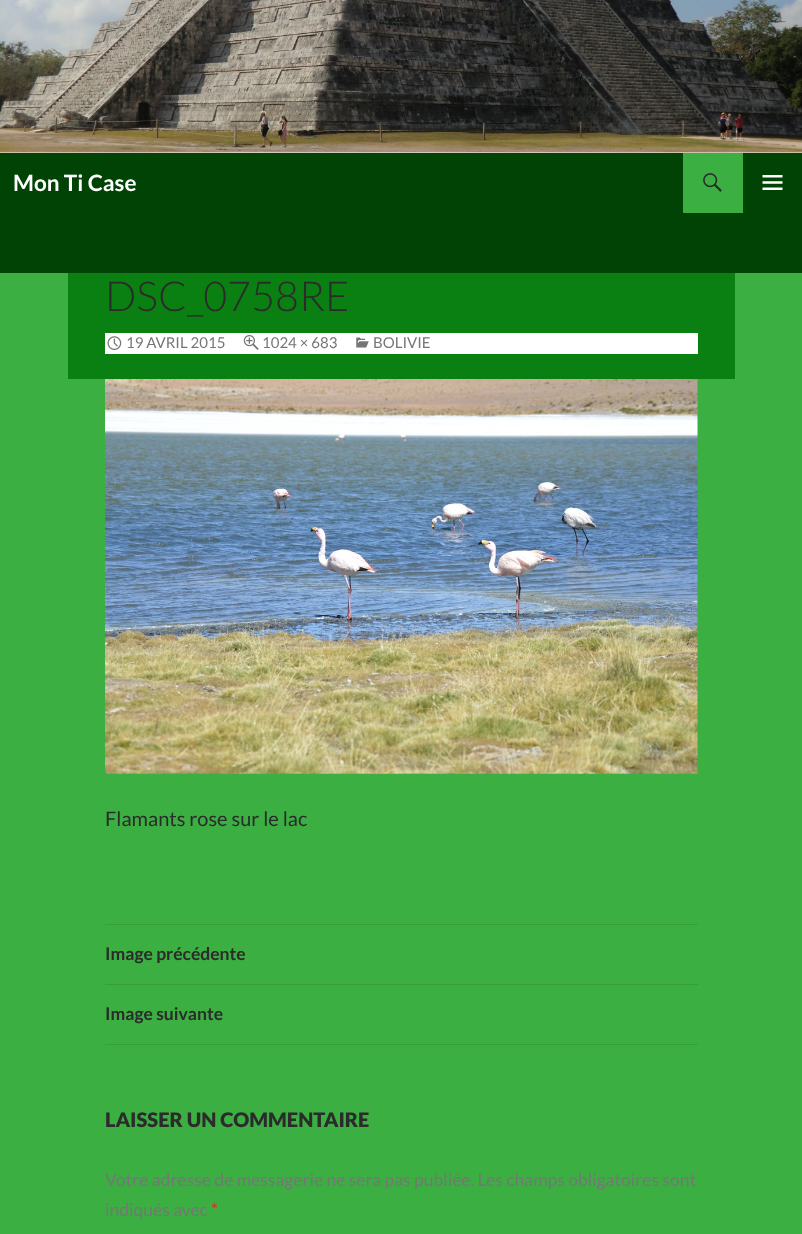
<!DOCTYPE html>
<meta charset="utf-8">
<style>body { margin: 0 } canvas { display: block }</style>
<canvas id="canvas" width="802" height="1234"></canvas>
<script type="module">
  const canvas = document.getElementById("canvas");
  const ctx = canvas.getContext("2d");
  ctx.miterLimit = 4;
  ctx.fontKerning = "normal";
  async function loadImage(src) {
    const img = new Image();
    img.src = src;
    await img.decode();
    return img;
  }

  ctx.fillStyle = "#ffffff";
  ctx.fillRect(0, 0, 802, 1234);
  ctx.drawImage(await loadImage("img1.png"), 0, 0, 802, 153);
  ctx.fillStyle = "#004304";
  ctx.fillRect(0, 153, 802, 120);
  ctx.font = "bold 22.5px Lato";
  ctx.fillStyle = "#ffffff";
  ctx.fillText("Mon Ti Case", 13, 191);
  ctx.fillStyle = "#3baf42";
  ctx.fillRect(683, 153, 60, 60);
  ctx.drawImage(await loadImage("img2.png"), 703, 173, 19, 19);
  ctx.drawImage(await loadImage("img3.png"), 762, 175, 21, 15);
  ctx.fillRect(0, 273, 802, 961);
  ctx.fillStyle = "#0a8012";
  ctx.fillRect(68, 273, 667, 106);
  ctx.font = "300 41.25px Lato";
  ctx.fillStyle = "#2b2b2b";
  ctx.fillText("DSC_0758RE", 105, 311);
  ctx.fillStyle = "#ffffff";
  ctx.fillRect(105, 333, 593, 21);
  ctx.drawImage(await loadImage("img4.png"), 107, 336, 15, 14);
  ctx.font = "15px Lato";
  ctx.fillStyle = "#767676";
  ctx.fillText("19 AVRIL 2015", 126, 348);
  ctx.drawImage(await loadImage("img5.png"), 243, 335, 16, 15);
  ctx.fillText("1024 × 683", 262, 348);
  ctx.drawImage(await loadImage("img6.png"), 356, 337, 13, 11);
  ctx.fillText("BOLIVIE", 373, 348);
  ctx.drawImage(await loadImage("img7.png"), 105, 379, 593, 395);
  ctx.font = "20px Lato";
  ctx.fillStyle = "#2b2b2b";
  ctx.fillText("Flamants rose sur le lac", 105, 826);
  ctx.fillStyle = "#359e3b";
  ctx.fillRect(105, 924, 593, 1);
  ctx.fillRect(105, 984, 593, 1);
  ctx.font = "bold 17.5px Lato";
  ctx.fillStyle = "#2b2b2b";
  ctx.fillText("Image précédente", 105, 960);
  ctx.fillStyle = "#359e3b";
  ctx.fillRect(105, 1044, 593, 1);
  ctx.fillStyle = "#2b2b2b";
  ctx.fillText("Image suivante", 105, 1020);
  ctx.font = "900 20px Lato";
  ctx.fillText("LAISSER UN COMMENTAIRE", 105, 1127);
  ctx.font = "17.5px Lato";
  ctx.fillStyle = "#767676";
  ctx.fillText("Votre adresse de messagerie ne sera pas publiée. Les champs obligatoires sont", 105, 1186);
  ctx.fillText("indiqués avec", 105, 1216);
  ctx.fillStyle = "#c0392b";
  ctx.fillText("*", 211, 1216);
</script>
